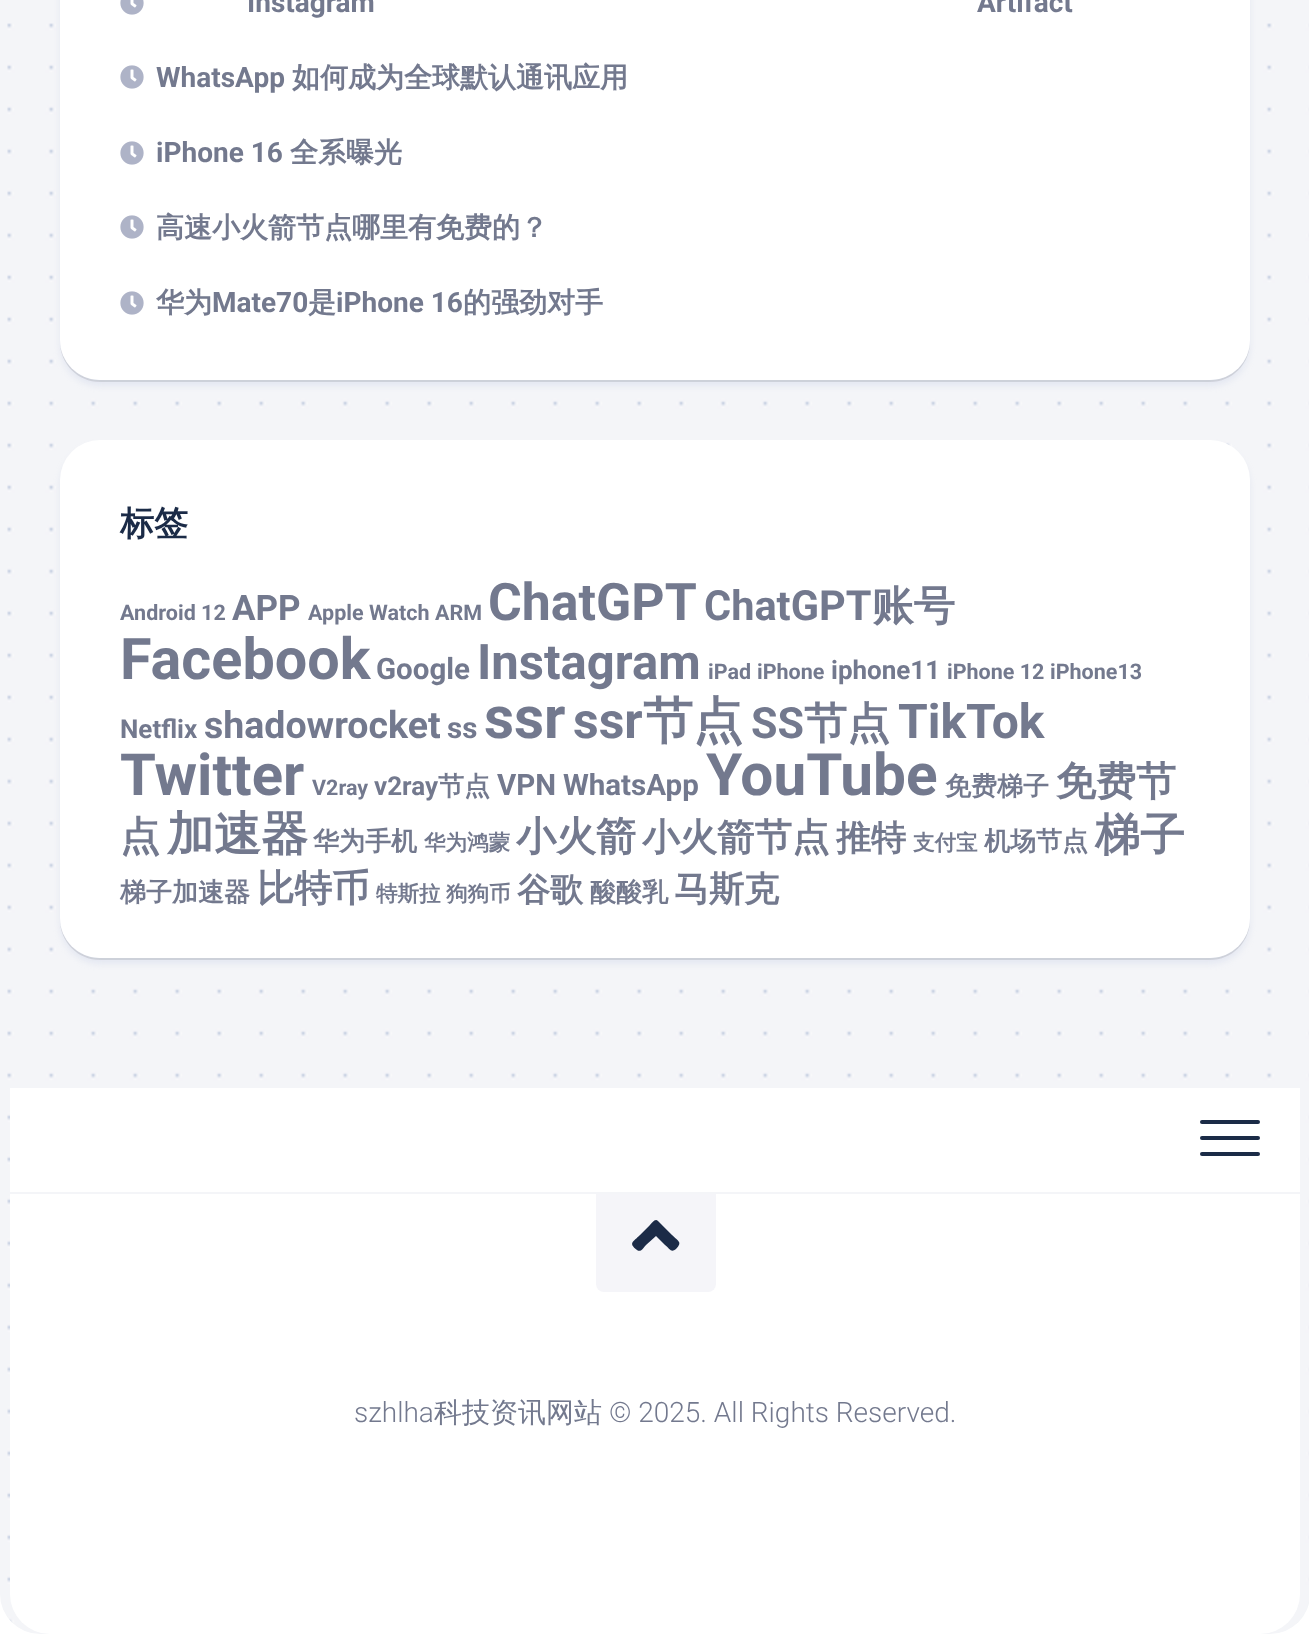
<!DOCTYPE html>
<meta charset="utf-8">
<style>body { margin: 0 } canvas { display: block }</style>
<canvas id="canvas" width="1309" height="1643"></canvas>
<script type="module">
  const canvas = document.getElementById("canvas");
  const ctx = canvas.getContext("2d");
  ctx.miterLimit = 4;
  ctx.fontKerning = "normal";
  async function loadImage(src) {
    const img = new Image();
    img.src = src;
    await img.decode();
    return img;
  }

  ctx.fillStyle = "#ffffff";
  ctx.fillRect(0, 0, 1309, 1643);
  ctx.fillStyle = "#f4f5f8";
  ctx.beginPath();
  ctx.roundRect(0, -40, 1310, 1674, 40);
  ctx.fill();
  ctx.drawImage(await loadImage("img1.png"), 7, 23, 1302, 1601);
  ctx.fillStyle = "rgba(193, 203, 230, 0.3)";
  ctx.filter = "blur(3px)";
  ctx.beginPath();
  ctx.roundRect(60, -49, 1190, 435, 40);
  ctx.fill();
  ctx.filter = "none";
  ctx.fillStyle = "rgba(0, 0, 0, 0.1)";
  ctx.beginPath();
  ctx.moveTo(60, 340);
  ctx.lineTo(60, 342);
  ctx.bezierCurveTo(60, 364, 78, 382, 100, 382);
  ctx.lineTo(1210, 382);
  ctx.bezierCurveTo(1232, 382, 1250, 364, 1250, 342);
  ctx.lineTo(1250, 340);
  ctx.bezierCurveTo(1250, 362, 1232, 380, 1210, 380);
  ctx.lineTo(100, 380);
  ctx.bezierCurveTo(78, 380, 60, 362, 60, 340);
  ctx.closePath();
  ctx.fill();
  ctx.fillStyle = "#ffffff";
  ctx.beginPath();
  ctx.roundRect(60, -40, 1190, 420, 40);
  ctx.fill();
  ctx.drawImage(await loadImage("img2.png"), 120, 0, 24, 15);
  ctx.font = "bold 28px Roboto";
  ctx.fillStyle = "#73798e";
  ctx.fillText("Instagram", 247, 12);
  ctx.fillText("Artifact", 977, 12);
  ctx.drawImage(await loadImage("img3.png"), 120, 65, 24, 24);
  ctx.fillText("WhatsApp", 156, 87);
  ctx.font = "bold 28px WenQuanYi Zen Hei";
  ctx.fillText("如何成为全球默认通讯应用", 292, 87);
  ctx.drawImage(await loadImage("img3.png"), 120, 141, 24, 24);
  ctx.font = "bold 28px Roboto";
  ctx.fillText("iPhone 16", 156, 162);
  ctx.font = "bold 28px WenQuanYi Zen Hei";
  ctx.fillText("全系曝光", 290, 162);
  ctx.drawImage(await loadImage("img3.png"), 120, 215, 24, 24);
  ctx.fillText("高速小火箭节点哪里有免费的？", 156, 237);
  ctx.drawImage(await loadImage("img3.png"), 120, 291, 24, 24);
  ctx.fillText("华为", 156, 312);
  ctx.font = "bold 28px Roboto";
  ctx.fillText("Mate70", 212, 312);
  ctx.font = "bold 28px WenQuanYi Zen Hei";
  ctx.fillText("是", 308, 312);
  ctx.font = "bold 28px Roboto";
  ctx.fillText("iPhone 16", 336, 312);
  ctx.font = "bold 28px WenQuanYi Zen Hei";
  ctx.fillText("的强劲对手", 463, 312);
  ctx.fillStyle = "rgba(193, 203, 230, 0.3)";
  ctx.filter = "blur(3px)";
  ctx.beginPath();
  ctx.roundRect(60, 446, 1190, 518, 40);
  ctx.fill();
  ctx.filter = "none";
  ctx.fillStyle = "rgba(0, 0, 0, 0.1)";
  ctx.beginPath();
  ctx.moveTo(60, 918);
  ctx.lineTo(60, 920);
  ctx.bezierCurveTo(60, 942, 78, 960, 100, 960);
  ctx.lineTo(1210, 960);
  ctx.bezierCurveTo(1232, 960, 1250, 942, 1250, 920);
  ctx.lineTo(1250, 918);
  ctx.bezierCurveTo(1250, 940, 1232, 958, 1210, 958);
  ctx.lineTo(100, 958);
  ctx.bezierCurveTo(78, 958, 60, 940, 60, 918);
  ctx.closePath();
  ctx.fill();
  ctx.fillStyle = "#ffffff";
  ctx.beginPath();
  ctx.roundRect(60, 440, 1190, 518, 40);
  ctx.fill();
  ctx.font = "bold 34px WenQuanYi Zen Hei";
  ctx.fillStyle = "#1b2b47";
  ctx.fillText("标签", 120, 535);
  ctx.font = "bold 21.5px Roboto";
  ctx.fillStyle = "#73798e";
  ctx.fillText("Android 12", 120, 620);
  ctx.font = "bold 35px Roboto";
  ctx.fillText("APP", 232, 620);
  ctx.font = "bold 21.5px Roboto";
  ctx.fillText("Apple Watch", 308, 620);
  ctx.fillText("ARM", 435, 620);
  ctx.font = "bold 51.75px Roboto";
  ctx.fillText("ChatGPT", 488, 620);
  ctx.font = "bold 41.5px Roboto";
  ctx.fillText("ChatGPT", 704, 620);
  ctx.font = "bold 41.5px WenQuanYi Zen Hei";
  ctx.fillText("账号", 872, 620);
  ctx.font = "bold 57.5px Roboto";
  ctx.fillText("Facebook", 120, 679);
  ctx.font = "bold 29.5px Roboto";
  ctx.fillText("Google", 376, 679);
  ctx.font = "bold 49px Roboto";
  ctx.fillText("Instagram", 477, 679);
  ctx.font = "bold 21.5px Roboto";
  ctx.fillText("iPad", 708, 679);
  ctx.fillText("iPhone", 757, 679);
  ctx.font = "bold 26px Roboto";
  ctx.fillText("iphone11", 831, 679);
  ctx.font = "bold 21.5px Roboto";
  ctx.fillText("iPhone 12", 947, 679);
  ctx.fillText("iPhone13", 1050, 679);
  ctx.font = "bold 26px Roboto";
  ctx.fillText("Netflix", 120, 738);
  ctx.font = "bold 37.5px Roboto";
  ctx.fillText("shadowrocket", 204, 738);
  ctx.font = "bold 29.5px Roboto";
  ctx.fillText("ss", 447, 738);
  ctx.font = "bold 58.5px Roboto";
  ctx.fillText("ssr", 484, 738);
  ctx.font = "bold 50px Roboto";
  ctx.fillText("ssr", 573, 738);
  ctx.font = "bold 50px WenQuanYi Zen Hei";
  ctx.fillText("节点", 643, 738);
  ctx.font = "bold 43px Roboto";
  ctx.fillText("SS", 751, 738);
  ctx.font = "bold 43px WenQuanYi Zen Hei";
  ctx.fillText("节点", 804, 738);
  ctx.font = "bold 48px Roboto";
  ctx.fillText("TikTok", 898, 738);
  ctx.font = "bold 58px Roboto";
  ctx.fillText("Twitter", 120, 795);
  ctx.font = "bold 21.5px Roboto";
  ctx.fillText("V2ray", 312, 795);
  ctx.font = "bold 26px Roboto";
  ctx.fillText("v2ray", 374, 795);
  ctx.font = "bold 26px WenQuanYi Zen Hei";
  ctx.fillText("节点", 438, 795);
  ctx.font = "bold 29.5px Roboto";
  ctx.fillText("VPN", 497, 795);
  ctx.fillText("WhatsApp", 563, 795);
  ctx.font = "bold 58.5px Roboto";
  ctx.fillText("YouTube", 706, 795);
  ctx.font = "bold 26px WenQuanYi Zen Hei";
  ctx.fillText("免费梯子", 945, 795);
  ctx.font = "bold 40px WenQuanYi Zen Hei";
  ctx.fillText("免费节", 1056, 795);
  ctx.fillText("点", 120, 850);
  ctx.font = "bold 47px WenQuanYi Zen Hei";
  ctx.fillText("加速器", 167, 850);
  ctx.font = "bold 26px WenQuanYi Zen Hei";
  ctx.fillText("华为手机", 313, 850);
  ctx.font = "bold 21.5px WenQuanYi Zen Hei";
  ctx.fillText("华为鸿蒙", 424, 850);
  ctx.font = "bold 40px WenQuanYi Zen Hei";
  ctx.fillText("小火箭", 516, 850);
  ctx.font = "bold 37.5px WenQuanYi Zen Hei";
  ctx.fillText("小火箭节点", 642, 850);
  ctx.font = "bold 35px WenQuanYi Zen Hei";
  ctx.fillText("推特", 836, 850);
  ctx.font = "bold 21.5px WenQuanYi Zen Hei";
  ctx.fillText("支付宝", 913, 850);
  ctx.font = "bold 26px WenQuanYi Zen Hei";
  ctx.fillText("机场节点", 984, 850);
  ctx.font = "bold 45px WenQuanYi Zen Hei";
  ctx.fillText("梯子", 1095, 850);
  ctx.font = "bold 26px WenQuanYi Zen Hei";
  ctx.fillText("梯子加速器", 120, 901);
  ctx.font = "bold 37.5px WenQuanYi Zen Hei";
  ctx.fillText("比特币", 257, 901);
  ctx.font = "bold 21.5px WenQuanYi Zen Hei";
  ctx.fillText("特斯拉", 376, 901);
  ctx.fillText("狗狗币", 446, 901);
  ctx.font = "bold 33px WenQuanYi Zen Hei";
  ctx.fillText("谷歌", 517, 901);
  ctx.font = "bold 26px WenQuanYi Zen Hei";
  ctx.fillText("酸酸乳", 590, 901);
  ctx.font = "bold 35px WenQuanYi Zen Hei";
  ctx.fillText("马斯克", 674, 901);
  ctx.fillStyle = "#ffffff";
  ctx.beginPath();
  ctx.roundRect(10, 1088, 1290, 546, [0, 0, 40, 40]);
  ctx.fill();
  ctx.fillStyle = "#1b2b47";
  ctx.beginPath();
  ctx.roundRect(1200, 1120, 60, 4, 2);
  ctx.fill();
  ctx.beginPath();
  ctx.roundRect(1200, 1136, 60, 4, 2);
  ctx.fill();
  ctx.beginPath();
  ctx.roundRect(1200, 1152, 60, 4, 2);
  ctx.fill();
  ctx.fillStyle = "#f4f5f8";
  ctx.fillRect(10, 1192, 1290, 2);
  ctx.fillStyle = "#f5f5f9";
  ctx.beginPath();
  ctx.roundRect(596, 1194, 120, 98, [0, 0, 8, 8]);
  ctx.fill();
  ctx.fillStyle = "#1b2b47";
  ctx.beginPath();
  ctx.moveTo(658, 1221);
  ctx.lineTo(672, 1235);
  ctx.bezierCurveTo(678, 1241, 683, 1242, 676, 1249);
  ctx.bezierCurveTo(671, 1253, 670, 1249, 665, 1245);
  ctx.lineTo(656, 1236);
  ctx.lineTo(646, 1245);
  ctx.bezierCurveTo(644, 1247, 641, 1253, 637, 1250);
  ctx.bezierCurveTo(628, 1243, 633, 1242, 640, 1235);
  ctx.lineTo(650, 1225);
  ctx.bezierCurveTo(652, 1223, 655, 1218, 658, 1221);
  ctx.closePath();
  ctx.fill();
  ctx.font = "300 28px Roboto";
  ctx.fillStyle = "#73798e";
  ctx.fillText("szhlha", 354, 1422);
  ctx.font = "500 28px WenQuanYi Zen Hei";
  ctx.fillText("科技资讯网站", 434, 1422);
  ctx.font = "300 28px Roboto";
  ctx.fillText("© 2025. All Rights Reserved.", 609, 1422);
</script>
